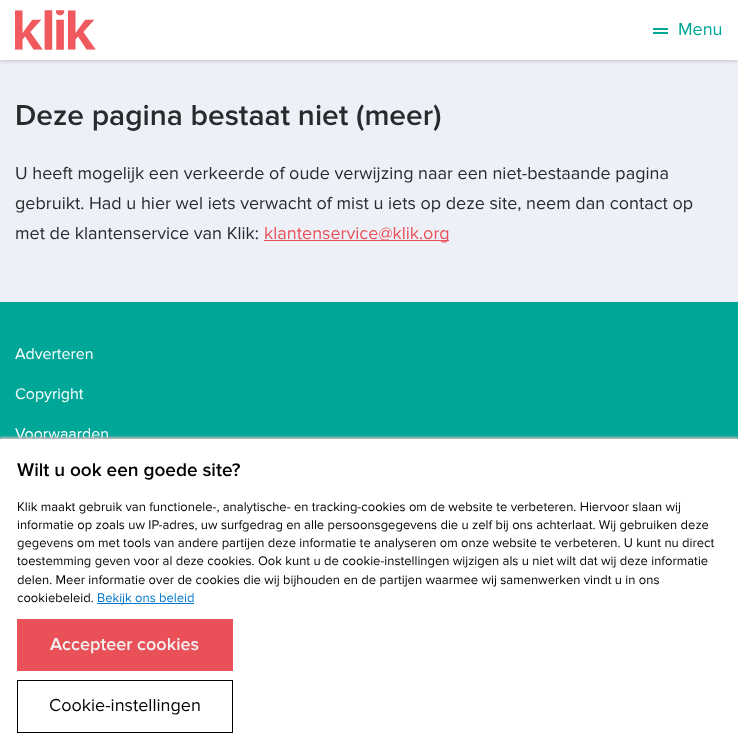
<!DOCTYPE html>
<meta charset="utf-8">
<style>body { margin: 0 } canvas { display: block }</style>
<canvas id="canvas" width="738" height="750"></canvas>
<script type="module">
  const canvas = document.getElementById("canvas");
  const ctx = canvas.getContext("2d");
  ctx.miterLimit = 4;
  ctx.fontKerning = "normal";
  async function loadImage(src) {
    const img = new Image();
    img.src = src;
    await img.decode();
    return img;
  }

  ctx.fillStyle = "#eef0f7";
  ctx.fillRect(0, 0, 738, 750);
  ctx.fillStyle = "rgba(0, 0, 0, 0.2)";
  ctx.filter = "blur(2px)";
  ctx.beginPath();
  ctx.rect(0, 1, 738, 60);
  ctx.fill();
  ctx.filter = "none";
  ctx.fillStyle = "#ffffff";
  ctx.fillRect(0, 0, 738, 60);
  ctx.drawImage(await loadImage("img1.png"), 15, 10, 81, 40);
  ctx.fillStyle = "#00a799";
  ctx.fillRect(653, 28, 15, 2);
  ctx.font = "18px Proxima Nova";
  ctx.fillText("Menu", 678, 35);
  ctx.fillRect(653, 32, 15, 2);
  ctx.font = "600 30px Proxima Nova";
  ctx.fillStyle = "#262b2e";
  ctx.fillText("Deze pagina bestaat niet (meer)", 15, 125);
  ctx.font = "18px Proxima Nova";
  ctx.fillText("U heeft mogelijk een verkeerde of oude verwijzing naar een niet-bestaande pagina", 15, 179);
  ctx.fillText("gebruikt. Had u hier wel iets verwacht of mist u iets op deze site, neem dan contact op", 15, 209);
  ctx.fillText("met de klantenservice van Klik:", 15, 239);
  ctx.fillStyle = "#ea5058";
  ctx.fillRect(264, 240, 185, 1);
  ctx.fillText("klantenservice@klik.org", 264, 239);
  ctx.fillStyle = "#00a799";
  ctx.fillRect(0, 302, 738, 137);
  ctx.font = "16px Proxima Nova";
  ctx.fillStyle = "#ffffff";
  ctx.fillText("Adverteren", 15, 359);
  ctx.fillText("Copyright", 15, 399);
  ctx.fillText("Voorwaarden", 15, 439);
  ctx.fillStyle = "#bababa";
  ctx.filter = "blur(1px)";
  ctx.beginPath();
  ctx.rect(0, 437, 738, 311);
  ctx.fill();
  ctx.filter = "none";
  ctx.fillStyle = "#ffffff";
  ctx.fillRect(0, 439, 738, 311);
  ctx.font = "600 19px Proxima Nova";
  ctx.fillStyle = "#000000";
  ctx.fillText("Wilt u ook een goede site?", 17, 476);
  ctx.font = "13px Proxima Nova";
  ctx.fillText("Klik maakt gebruik van functionele-, analytische- en tracking-cookies om de website te verbeteren. Hiervoor slaan wij", 17, 511);
  ctx.fillText("informatie op zoals uw IP-adres, uw surfgedrag en alle persoonsgegevens die u zelf bij ons achterlaat. Wij gebruiken deze", 17, 529);
  ctx.fillText("gegevens om met tools van andere partijen deze informatie te analyseren om onze website te verbeteren. U kunt nu direct", 17, 547);
  ctx.fillText("toestemming geven voor al deze cookies. Ook kunt u de cookie-instellingen wijzigen als u niet wilt dat wij deze informatie", 17, 565);
  ctx.fillText("delen. Meer informatie over de cookies die wij bijhouden en de partijen waarmee wij samenwerken vindt u in ons", 17, 584);
  ctx.fillText("cookiebeleid.", 17, 602);
  ctx.fillStyle = "#0077cc";
  ctx.fillRect(97, 603, 97, 1);
  ctx.fillText("Bekijk ons beleid", 97, 602);
  ctx.fillStyle = "#ea5058";
  ctx.fillRect(17, 619, 216, 52);
  ctx.font = "600 18px Proxima Nova";
  ctx.fillStyle = "#f1f1f1";
  ctx.fillText("Accepteer cookies", 50, 650);
  ctx.strokeStyle = "#000000";
  ctx.strokeRect(17.5, 680.5, 215, 52);
  ctx.font = "18px Proxima Nova";
  ctx.fillStyle = "#000000";
  ctx.fillText("Cookie-instellingen", 49, 711);
</script>
